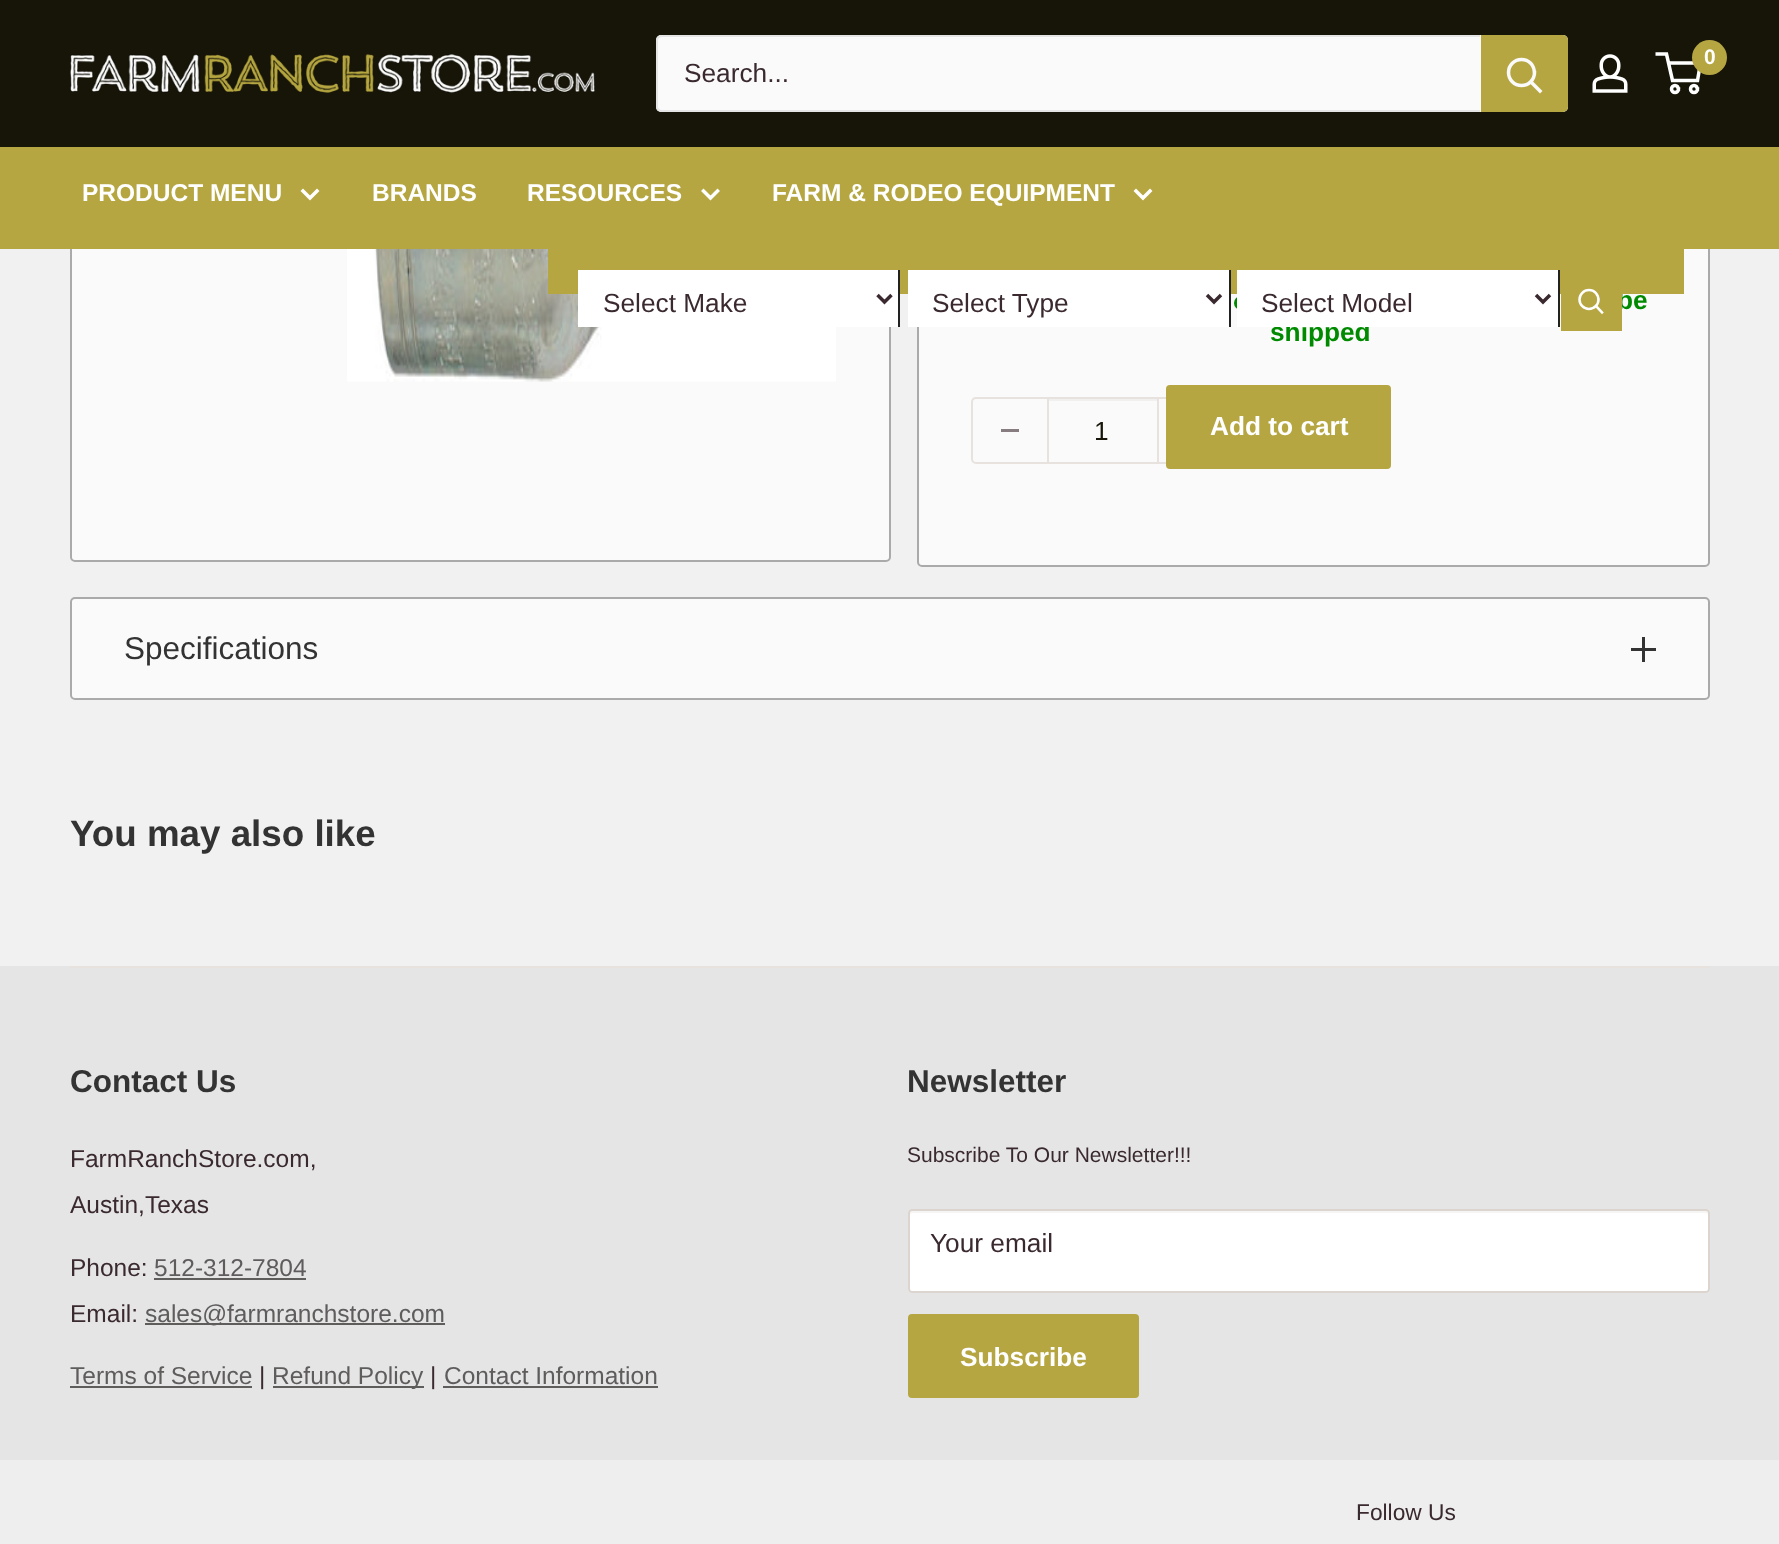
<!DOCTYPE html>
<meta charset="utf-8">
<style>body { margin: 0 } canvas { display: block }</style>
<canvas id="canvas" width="1779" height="1544"></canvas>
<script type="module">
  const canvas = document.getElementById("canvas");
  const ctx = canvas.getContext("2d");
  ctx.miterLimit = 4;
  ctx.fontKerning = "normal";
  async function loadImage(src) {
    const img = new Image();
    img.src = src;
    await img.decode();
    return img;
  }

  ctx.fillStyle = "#f1f1f1";
  ctx.fillRect(0, 0, 1779, 1544);
  ctx.fillStyle = "#fafafa";
  ctx.beginPath();
  ctx.roundRect(71, -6, 819, 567, 4);
  ctx.fill();
  ctx.strokeStyle = "#aaaaaa";
  ctx.lineWidth = 2;
  ctx.stroke();
  ctx.beginPath();
  ctx.roundRect(918, -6, 791, 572, 4);
  ctx.fill();
  ctx.stroke();
  ctx.fillStyle = "#171508";
  ctx.fillRect(0, 0, 1779, 147);
  ctx.drawImage(await loadImage("img1.png"), 70, 54, 525, 39);
  ctx.fillStyle = "#fafafa";
  ctx.beginPath();
  ctx.roundRect(656, 35, 912, 77, 5);
  ctx.fill();
  ctx.fillStyle = "#e5e5e5";
  ctx.beginPath();
  ctx.moveTo(662, 35);
  ctx.lineTo(1480, 35);
  ctx.lineTo(1480, 112);
  ctx.lineTo(662, 112);
  ctx.bezierCurveTo(659, 112, 656, 110, 656, 107);
  ctx.lineTo(656, 40);
  ctx.bezierCurveTo(656, 37, 659, 35, 662, 35);
  ctx.closePath();
  ctx.moveTo(662, 37);
  ctx.lineTo(1480, 37);
  ctx.lineTo(1480, 110);
  ctx.lineTo(662, 110);
  ctx.bezierCurveTo(660, 110, 658, 109, 658, 107);
  ctx.lineTo(658, 40);
  ctx.bezierCurveTo(658, 38, 660, 37, 662, 37);
  ctx.closePath();
  ctx.fill("evenodd");
  ctx.font = "26.25px Liberation Sans";
  ctx.fillStyle = "#3a2a2f";
  ctx.fillText("Search...", 684, 82);
  ctx.fillStyle = "#b5a642";
  ctx.beginPath();
  ctx.roundRect(1481, 35, 87, 77, [0, 5, 5, 0]);
  ctx.fill();
  ctx.beginPath();
  ctx.moveTo(1540, 91);
  ctx.lineTo(1531, 82);
  ctx.strokeStyle = "#fafafa";
  ctx.lineWidth = 3.5;
  ctx.lineCap = "square";
  ctx.stroke();
  ctx.beginPath();
  ctx.arc(1521.5, 72.5, 13, 0, Math.PI * 2);
  ctx.stroke();
  ctx.drawImage(await loadImage("img2.png"), 1592, 54, 36, 39);
  ctx.beginPath();
  ctx.arc(1675, 89, 3.5, 0, Math.PI * 2);
  ctx.strokeStyle = "#ffffff";
  ctx.stroke();
  ctx.beginPath();
  ctx.arc(1694, 89, 3.5, 0, Math.PI * 2);
  ctx.stroke();
  ctx.beginPath();
  ctx.moveTo(1668.5, 63);
  ctx.lineTo(1700.5, 63);
  ctx.lineTo(1697.5, 80.5);
  ctx.lineTo(1672.5, 80.5);
  ctx.lineTo(1666.5, 54);
  ctx.lineTo(1655.5, 54);
  ctx.lineCap = "butt";
  ctx.stroke();
  ctx.beginPath();
  ctx.arc(1709.5, 57.5, 17.5, 0, Math.PI * 2);
  ctx.fill();
  ctx.font = "bold 21px Liberation Sans";
  ctx.fillStyle = "#ffffff";
  ctx.fillText("0", 1704, 64);
  ctx.fillStyle = "#b5a642";
  ctx.fillRect(0, 147, 1779, 102);
  ctx.font = "bold 24.5px Liberation Sans";
  ctx.fillStyle = "#ffffff";
  ctx.fillText("PRODUCT MENU", 82, 201);
  ctx.beginPath();
  ctx.moveTo(317, 191);
  ctx.lineTo(310, 198);
  ctx.lineTo(303, 191);
  ctx.lineCap = "square";
  ctx.stroke();
  ctx.fillText("BRANDS", 372, 201);
  ctx.fillText("RESOURCES", 527, 201);
  ctx.beginPath();
  ctx.moveTo(717.5, 191);
  ctx.lineTo(710.5, 198);
  ctx.lineTo(703.5, 191);
  ctx.stroke();
  ctx.fillText("FARM & RODEO EQUIPMENT", 772, 201);
  ctx.beginPath();
  ctx.moveTo(1150, 191);
  ctx.lineTo(1143, 198);
  ctx.lineTo(1136, 191);
  ctx.stroke();
  ctx.drawImage(await loadImage("img3.png"), 347, 249, 489, 133);
  ctx.font = "bold 26.25px Liberation Sans";
  ctx.fillStyle = "#008a00";
  ctx.fillText("be", 1617, 309);
  ctx.fillStyle = "#b5a642";
  ctx.fillRect(548, 249, 1136, 45);
  ctx.fillStyle = "#ffffff";
  ctx.fillRect(578, 270, 320, 57);
  ctx.fillStyle = "#222222";
  ctx.fillRect(898, 270, 2, 57);
  ctx.beginPath();
  ctx.moveTo(877.5, 295);
  ctx.lineTo(884.5, 302);
  ctx.lineTo(891.5, 295);
  ctx.strokeStyle = "#3a2a2f";
  ctx.lineCap = "butt";
  ctx.stroke();
  ctx.font = "26.25px Liberation Sans";
  ctx.fillStyle = "#3a2a2f";
  ctx.fillText("Select Make", 603, 312);
  ctx.fillStyle = "#ffffff";
  ctx.fillRect(908, 270, 321, 57);
  ctx.fillStyle = "#222222";
  ctx.fillRect(1229, 270, 2, 57);
  ctx.beginPath();
  ctx.moveTo(1207, 295);
  ctx.lineTo(1214, 302);
  ctx.lineTo(1221, 295);
  ctx.stroke();
  ctx.fillStyle = "#3a2a2f";
  ctx.fillText("Select Type", 932, 312);
  ctx.fillStyle = "#008a00";
  ctx.beginPath();
  ctx.arc(1241, 303, 7, 0, Math.PI * 2);
  ctx.fill();
  ctx.font = "bold 26.25px Liberation Sans";
  ctx.fillText("shipped", 1270, 341);
  ctx.fillStyle = "#ffffff";
  ctx.fillRect(1237, 270, 321, 57);
  ctx.fillStyle = "#222222";
  ctx.fillRect(1558, 270, 2, 57);
  ctx.beginPath();
  ctx.moveTo(1536, 295);
  ctx.lineTo(1543, 302);
  ctx.lineTo(1550, 295);
  ctx.stroke();
  ctx.font = "26.25px Liberation Sans";
  ctx.fillStyle = "#3a2a2f";
  ctx.fillText("Select Model", 1261, 312);
  ctx.fillStyle = "#b5a642";
  ctx.fillRect(1561, 294, 61, 37);
  ctx.beginPath();
  ctx.moveTo(1602, 312.5);
  ctx.lineTo(1596, 306);
  ctx.strokeStyle = "#ffffff";
  ctx.lineWidth = 2.5;
  ctx.lineCap = "square";
  ctx.stroke();
  ctx.beginPath();
  ctx.arc(1589, 299.5, 9.5, 0, Math.PI * 2);
  ctx.stroke();
  ctx.beginPath();
  ctx.roundRect(972, 398, 261, 65, 4);
  ctx.strokeStyle = "#e7e2de";
  ctx.lineWidth = 2;
  ctx.stroke();
  ctx.fillStyle = "#877d80";
  ctx.fillRect(1001, 429, 18, 3);
  ctx.fillStyle = "#f2f0ef";
  ctx.fillRect(1048, 399, 109, 2);
  ctx.fillStyle = "#e7e2de";
  ctx.fillRect(1157, 399, 2, 63);
  ctx.fillRect(1047, 399, 2, 63);
  ctx.fillStyle = "#171508";
  ctx.fillText("1", 1094, 440);
  ctx.fillStyle = "#b5a642";
  ctx.beginPath();
  ctx.roundRect(1166, 385, 225, 84, 4);
  ctx.fill();
  ctx.font = "bold 26.25px Liberation Sans";
  ctx.fillStyle = "#ffffff";
  ctx.fillText("Add to cart", 1210, 435);
  ctx.fillStyle = "#fafafa";
  ctx.beginPath();
  ctx.roundRect(71, 598, 1638, 101, 4);
  ctx.fill();
  ctx.strokeStyle = "#aaaaaa";
  ctx.stroke();
  ctx.font = "31.5px Liberation Sans";
  ctx.fillStyle = "#333333";
  ctx.fillText("Specifications", 124, 659);
  ctx.fillRect(1642, 637, 3, 25);
  ctx.fillRect(1631, 648, 25, 3);
  ctx.font = "bold 36.75px Liberation Sans";
  ctx.fillText("You may also like", 70, 846);
  ctx.fillStyle = "#e5e5e5";
  ctx.fillRect(0, 966, 1779, 494);
  ctx.fillStyle = "#e7e2de";
  ctx.fillRect(70, 966, 1640, 2);
  ctx.font = "bold 31.5px Liberation Sans";
  ctx.fillStyle = "#333333";
  ctx.fillText("Contact Us", 70, 1092);
  ctx.font = "24.5px Liberation Sans";
  ctx.fillStyle = "#3a2a2f";
  ctx.fillText("FarmRanchStore.com,", 70, 1167);
  ctx.fillText("Austin,Texas", 70, 1213);
  ctx.fillText("Phone:", 70, 1276);
  ctx.fillStyle = "#5f5c5c";
  ctx.fillText("512-312-7804", 154, 1276);
  ctx.fillRect(154, 1278, 152, 2);
  ctx.fillStyle = "#3a2a2f";
  ctx.fillText("Email:", 70, 1322);
  ctx.fillStyle = "#5f5c5c";
  ctx.fillRect(145, 1323, 300, 2);
  ctx.fillText("sales@farmranchstore.com", 145, 1322);
  ctx.fillText("Terms of Service", 70, 1384);
  ctx.fillRect(70, 1386, 182, 2);
  ctx.fillStyle = "#3a2a2f";
  ctx.fillText("|", 259, 1384);
  ctx.fillStyle = "#5f5c5c";
  ctx.fillRect(273, 1386, 151, 2);
  ctx.fillText("Refund Policy", 272, 1384);
  ctx.fillStyle = "#3a2a2f";
  ctx.fillText("|", 430, 1384);
  ctx.fillStyle = "#5f5c5c";
  ctx.fillText("Contact Information", 444, 1384);
  ctx.fillRect(443, 1386, 215, 2);
  ctx.font = "bold 31.5px Liberation Sans";
  ctx.fillStyle = "#333333";
  ctx.fillText("Newsletter", 907, 1092);
  ctx.font = "21px Liberation Sans";
  ctx.fillStyle = "#3a2a2f";
  ctx.fillText("Subscribe To Our Newsletter!!!", 907, 1162);
  ctx.fillStyle = "#ffffff";
  ctx.beginPath();
  ctx.roundRect(908, 1209, 802, 84, 4);
  ctx.fill();
  ctx.fillStyle = "#f6f5f3";
  ctx.beginPath();
  ctx.moveTo(912, 1213);
  ctx.lineTo(1706, 1213);
  ctx.lineTo(1708, 1214);
  ctx.bezierCurveTo(1708, 1213, 1708, 1211, 1706, 1211);
  ctx.lineTo(912, 1211);
  ctx.bezierCurveTo(910, 1211, 910, 1213, 910, 1214);
  ctx.closePath();
  ctx.fill();
  ctx.beginPath();
  ctx.roundRect(909, 1210, 800, 82, 3);
  ctx.strokeStyle = "#dcd5cf";
  ctx.stroke();
  ctx.font = "26.25px Liberation Sans";
  ctx.fillStyle = "#3a2a2f";
  ctx.fillText("Your email", 930, 1252);
  ctx.fillStyle = "#b5a642";
  ctx.beginPath();
  ctx.roundRect(908, 1314, 231, 84, 4);
  ctx.fill();
  ctx.font = "bold 26.25px Liberation Sans";
  ctx.fillStyle = "#ffffff";
  ctx.fillText("Subscribe", 960, 1366);
  ctx.fillStyle = "#eeeeee";
  ctx.fillRect(0, 1460, 1779, 84);
  ctx.font = "22.75px Liberation Sans";
  ctx.fillStyle = "#3a2a2f";
  ctx.fillText("Follow Us", 1356, 1520);
</script>
